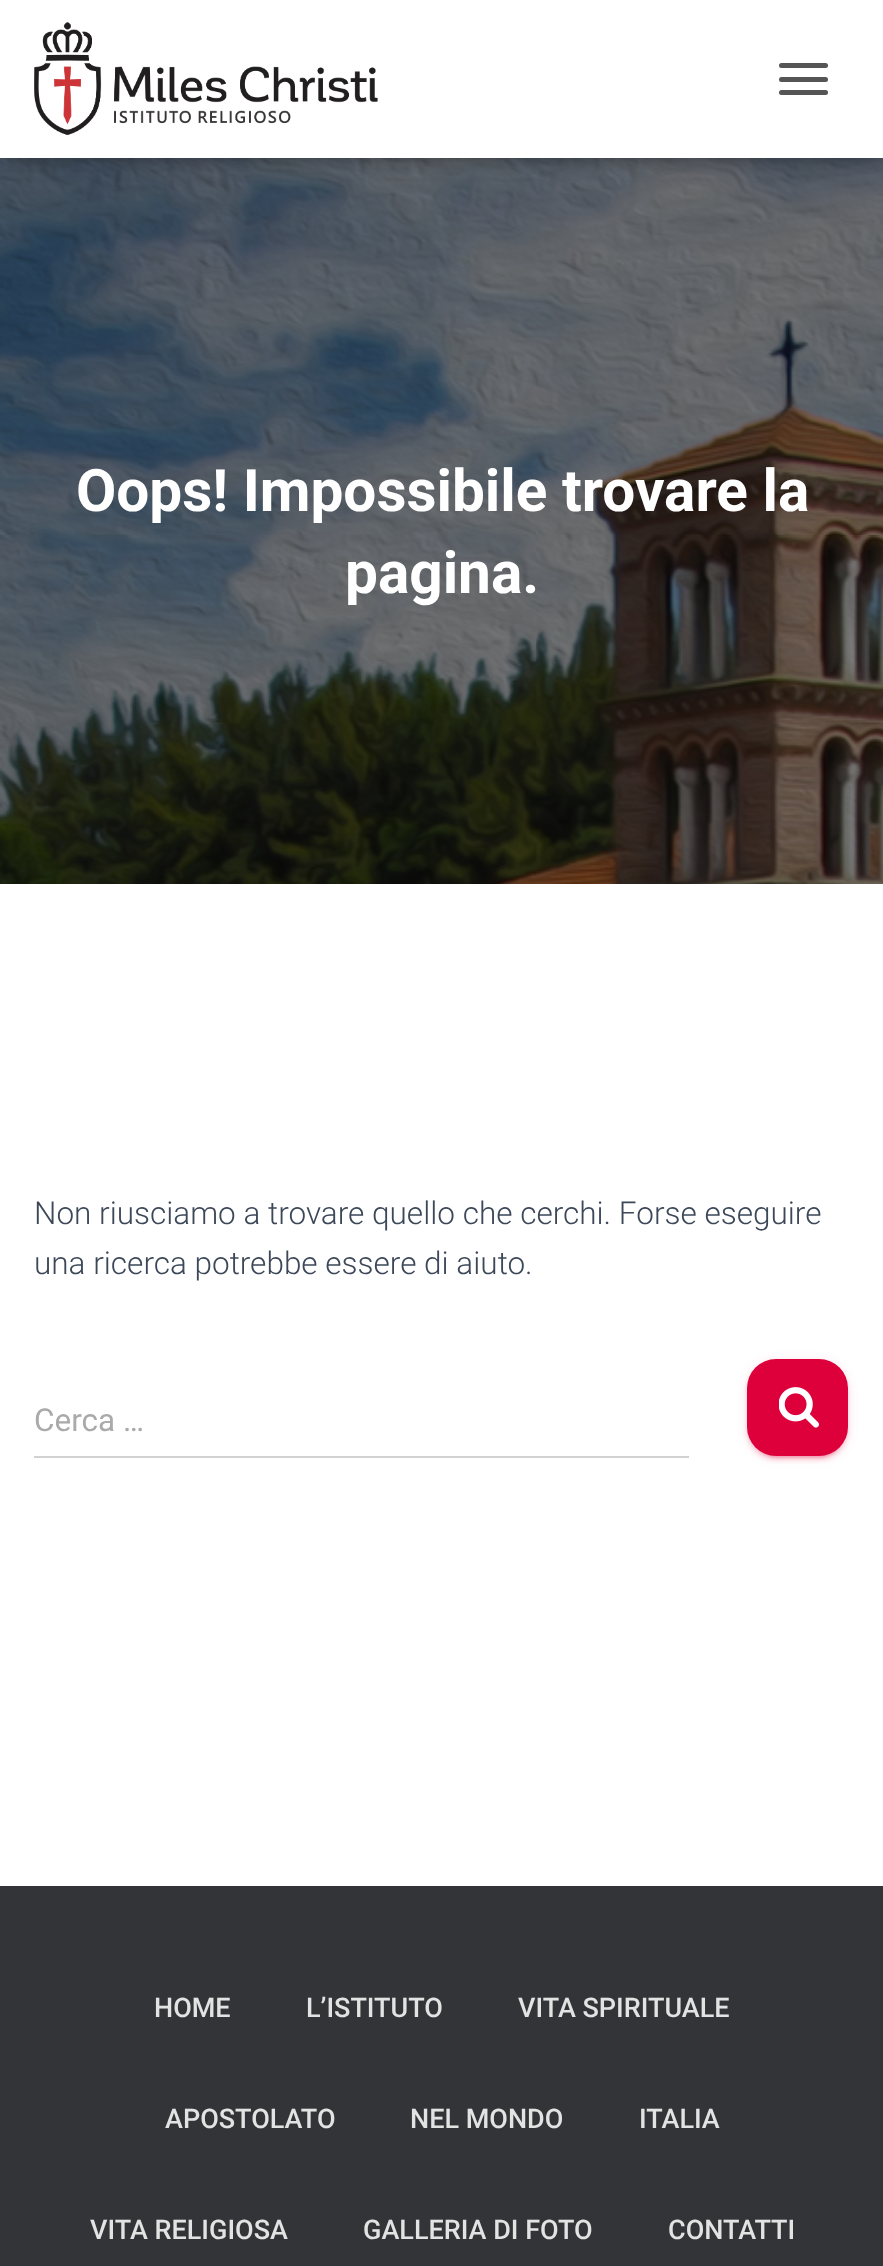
<!DOCTYPE html>
<meta charset="utf-8">
<style>body { margin: 0 } canvas { display: block }</style>
<canvas id="canvas" width="883" height="2266"></canvas>
<script type="module">
  const canvas = document.getElementById("canvas");
  const ctx = canvas.getContext("2d");
  ctx.miterLimit = 4;
  ctx.fontKerning = "normal";
  async function loadImage(src) {
    const img = new Image();
    img.src = src;
    await img.decode();
    return img;
  }

  ctx.fillStyle = "#ffffff";
  ctx.fillRect(0, 0, 883, 2266);
  ctx.drawImage(await loadImage("img1.png"), 0, 158, 883, 726);
  ctx.fillStyle = "rgba(0, 0, 0, 0.5)";
  ctx.fillRect(0, 158, 883, 726);
  ctx.fillStyle = "rgba(0, 0, 0, 0.1)";
  ctx.filter = "blur(5.5px)";
  ctx.beginPath();
  ctx.rect(5, 14, 875, 148);
  ctx.fill();
  ctx.filter = "none";
  ctx.fillStyle = "rgba(0, 0, 0, 0.12)";
  ctx.filter = "blur(11px)";
  ctx.beginPath();
  ctx.rect(0, 2, 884, 158);
  ctx.fill();
  ctx.filter = "none";
  ctx.fillStyle = "rgba(0, 0, 0, 0.42)";
  ctx.filter = "blur(11px)";
  ctx.beginPath();
  ctx.rect(14, 16, 857, 130);
  ctx.fill();
  ctx.filter = "none";
  ctx.fillStyle = "#ffffff";
  ctx.fillRect(0, 0, 883, 158);
  ctx.drawImage(await loadImage("img2.png"), 34, 22, 344, 113);
  ctx.fillStyle = "#555555";
  ctx.beginPath();
  ctx.roundRect(779, 63, 49, 5, 2.5);
  ctx.fill();
  ctx.beginPath();
  ctx.roundRect(779, 77, 49, 5, 2.5);
  ctx.fill();
  ctx.beginPath();
  ctx.roundRect(779, 90, 49, 5, 2.5);
  ctx.fill();
  ctx.font = "bold 58.5px Roboto";
  ctx.fillStyle = "#ffffff";
  ctx.fillText("Oops! Impossibile trovare la", 76, 511);
  ctx.fillText("pagina.", 345, 593);
  ctx.fillStyle = "rgba(0, 0, 0, 0.12)";
  ctx.filter = "blur(34px)";
  ctx.beginPath();
  ctx.rect(-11, 887, 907, 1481);
  ctx.fill();
  ctx.filter = "none";
  ctx.fillStyle = "#ffffff";
  ctx.fillRect(0, 884, 883, 1002);
  ctx.font = "300 31.5px Roboto";
  ctx.fillStyle = "#3c4858";
  ctx.fillText("Non riusciamo a trovare quello che cerchi. Forse eseguire", 34, 1224);
  ctx.fillText("una ricerca potrebbe essere di aiuto.", 34, 1274);
  ctx.font = "31.5px Roboto";
  ctx.fillStyle = "#aaaaaa";
  ctx.fillText("Cerca …", 34, 1431);
  ctx.fillStyle = "#d2d2d2";
  ctx.fillRect(34, 1456, 655, 2);
  ctx.fillStyle = "rgba(221, 0, 59, 0.12)";
  ctx.filter = "blur(5.5px)";
  ctx.beginPath();
  ctx.roundRect(747, 1361, 101, 97, 29);
  ctx.fill();
  ctx.filter = "none";
  ctx.fillStyle = "rgba(221, 0, 59, 0.2)";
  ctx.filter = "blur(1px)";
  ctx.beginPath();
  ctx.roundRect(752, 1370, 92, 88, 25);
  ctx.fill();
  ctx.filter = "none";
  ctx.fillStyle = "rgba(221, 0, 59, 0.14)";
  ctx.filter = "blur(2px)";
  ctx.beginPath();
  ctx.roundRect(747, 1364, 101, 96, 29);
  ctx.fill();
  ctx.filter = "none";
  ctx.fillStyle = "#dd003b";
  ctx.beginPath();
  ctx.roundRect(747, 1359, 101, 97, 29);
  ctx.fill();
  ctx.drawImage(await loadImage("img3.png"), 779, 1387, 40, 41);
  ctx.fillStyle = "#323437";
  ctx.fillRect(0, 1886, 883, 380);
  ctx.font = "500 27px Roboto";
  ctx.fillStyle = "#e2e3e3";
  ctx.fillText("HOME", 154, 2017);
  ctx.fillText("L’ISTITUTO", 306, 2017);
  ctx.fillText("VITA SPIRITUALE", 518, 2017);
  ctx.fillText("APOSTOLATO", 165, 2128);
  ctx.fillText("NEL MONDO", 410, 2128);
  ctx.fillText("ITALIA", 639, 2128);
  ctx.fillText("VITA RELIGIOSA", 90, 2239);
  ctx.fillText("GALLERIA DI FOTO", 363, 2239);
  ctx.fillText("CONTATTI", 668, 2239);
</script>
